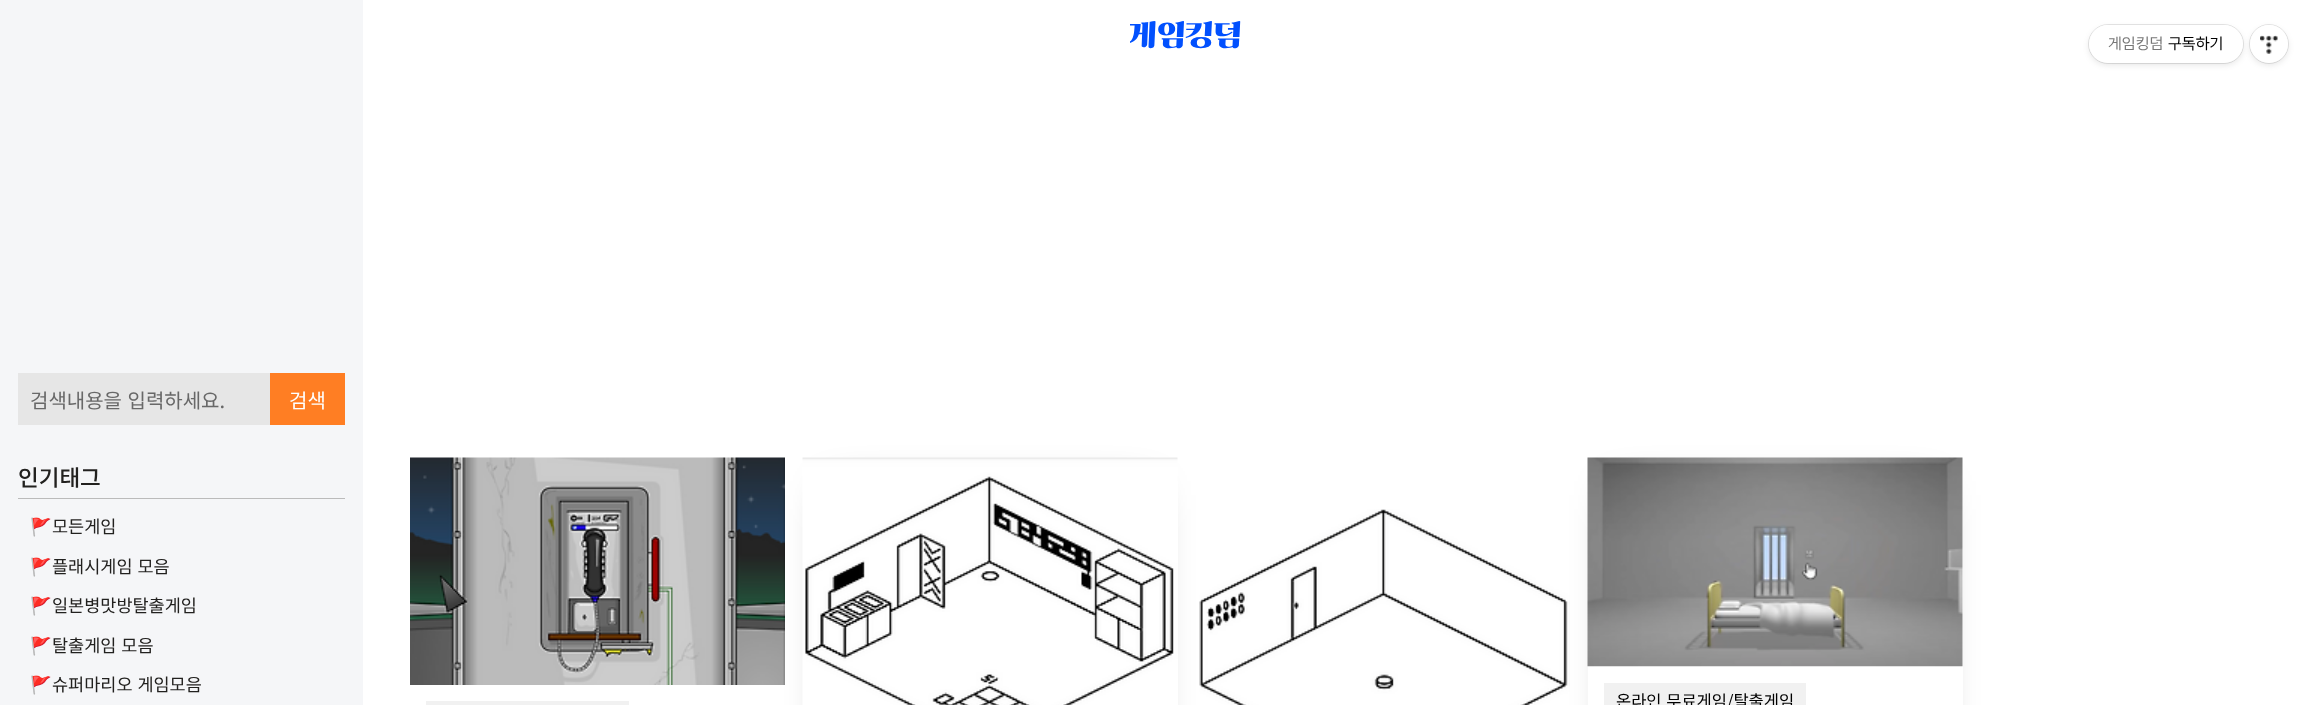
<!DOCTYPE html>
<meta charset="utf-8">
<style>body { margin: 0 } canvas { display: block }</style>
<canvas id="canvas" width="2312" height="705"></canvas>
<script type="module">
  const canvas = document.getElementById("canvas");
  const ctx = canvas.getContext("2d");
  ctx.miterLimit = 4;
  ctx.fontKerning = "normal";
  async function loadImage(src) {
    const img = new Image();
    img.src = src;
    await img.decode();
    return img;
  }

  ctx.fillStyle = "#ffffff";
  ctx.fillRect(0, 0, 2312, 705);
  ctx.save();
  ctx.beginPath();
  ctx.rect(1130, 0, 113, 69);
  ctx.clip();
  ctx.font = "30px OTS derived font";
  ctx.fillStyle = "#0150fe";
  ctx.fillText("게임킹덤", 1129, 44);
  ctx.restore();
  ctx.fillStyle = "#f5f6f8";
  ctx.fillRect(0, 0, 363, 705);
  ctx.fillStyle = "#e6e6e6";
  ctx.fillRect(18, 373, 252, 52);
  ctx.wordSpacing = "1px";
  ctx.font = "20px Noto Sans KR";
  ctx.fillStyle = "#686868";
  ctx.fillText("검색내용을 입력하세요.", 30, 408);
  ctx.fillStyle = "#ff7e23";
  ctx.fillRect(270, 373, 75, 52);
  ctx.wordSpacing = "0px";
  ctx.fillStyle = "#ffffff";
  ctx.fillText("검색", 289, 408);
  ctx.fillStyle = "#bbbbbb";
  ctx.fillRect(18, 498, 327, 1);
  ctx.font = "500 22.5px Noto Sans KR";
  ctx.fillStyle = "#22211f";
  ctx.fillText("인기태그", 18, 486);
  ctx.font = "17.5px Noto Color Emoji";
  ctx.fillText("🚩", 30, 533);
  ctx.font = "17.5px Noto Sans KR";
  ctx.fillText("모든게임", 52, 533);
  ctx.font = "17.5px Noto Color Emoji";
  ctx.fillText("🚩", 30, 573);
  ctx.wordSpacing = "1px";
  ctx.font = "17.5px Noto Sans KR";
  ctx.fillText("플래시게임 모음", 52, 573);
  ctx.wordSpacing = "0px";
  ctx.font = "17.5px Noto Color Emoji";
  ctx.fillText("🚩", 30, 612);
  ctx.font = "17.5px Noto Sans KR";
  ctx.fillText("일본병맛방탈출게임", 52, 612);
  ctx.font = "17.5px Noto Color Emoji";
  ctx.fillText("🚩", 30, 652);
  ctx.wordSpacing = "1px";
  ctx.font = "17.5px Noto Sans KR";
  ctx.fillText("탈출게임 모음", 52, 652);
  ctx.wordSpacing = "0px";
  ctx.font = "17.5px Noto Color Emoji";
  ctx.fillText("🚩", 30, 691);
  ctx.wordSpacing = "1px";
  ctx.font = "17.5px Noto Sans KR";
  ctx.fillText("슈퍼마리오 게임모음", 52, 691);
  ctx.drawImage(await loadImage("img1.png"), 410, 457, 375, 228);
  ctx.fillStyle = "#f1f1f1";
  ctx.fillRect(426, 701, 203, 4);
  ctx.fillStyle = "rgba(0, 0, 0, 0.5)";
  ctx.filter = "blur(22px)";
  ctx.beginPath();
  ctx.rect(834, 495, 312, 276);
  ctx.fill();
  ctx.filter = "none";
  ctx.fillStyle = "#ffffff";
  ctx.fillRect(1177, 481, 1, 224);
  ctx.drawImage(await loadImage("img2.png"), 802, 457, 376, 248);
  ctx.drawImage(await loadImage("img3.png"), 1199, 509, 371, 196);
  ctx.fillStyle = "rgba(0, 0, 0, 0.5)";
  ctx.filter = "blur(22px)";
  ctx.beginPath();
  ctx.rect(1619, 495, 312, 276);
  ctx.fill();
  ctx.filter = "none";
  ctx.fillStyle = "#ffffff";
  ctx.fillRect(1588, 458, 375, 247);
  ctx.drawImage(await loadImage("img4.png"), 1587, 457, 376, 210);
  ctx.fillStyle = "#f1f1f1";
  ctx.fillRect(1604, 683, 202, 22);
  ctx.font = "16.5px Noto Sans KR";
  ctx.fillStyle = "#000000";
  ctx.fillText("온라인 무료게임/탈출게임", 1616, 707);
  ctx.fillStyle = "rgba(0, 0, 0, 0.1)";
  ctx.filter = "blur(3px)";
  ctx.beginPath();
  ctx.roundRect(2250, 28, 38, 37, 18.5);
  ctx.fill();
  ctx.filter = "none";
  ctx.beginPath();
  ctx.arc(2269, 44, 19.5, 0, Math.PI * 2);
  ctx.strokeStyle = "rgba(0, 0, 0, 0.1)";
  ctx.stroke();
  ctx.fillStyle = "#ffffff";
  ctx.beginPath();
  ctx.arc(2269, 44, 19, 0, Math.PI * 2);
  ctx.fill();
  ctx.fillStyle = "rgba(0, 0, 0, 0.1)";
  ctx.filter = "blur(3px)";
  ctx.beginPath();
  ctx.roundRect(2089, 28, 154, 37, 18.5);
  ctx.fill();
  ctx.filter = "none";
  ctx.beginPath();
  ctx.roundRect(2088.5, 24.5, 155, 39, 19.5);
  ctx.stroke();
  ctx.fillStyle = "#ffffff";
  ctx.beginPath();
  ctx.roundRect(2089, 25, 154, 38, 19);
  ctx.fill();
  ctx.wordSpacing = "0px";
  ctx.font = "16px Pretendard";
  ctx.fillStyle = "#777777";
  ctx.fillText("게임킹덤", 2108, 49);
  ctx.fillStyle = "#000000";
  ctx.fillText("구독하기", 2168, 49);
  ctx.drawImage(await loadImage("img5.png"), 2260, 35, 18, 19);
</script>
